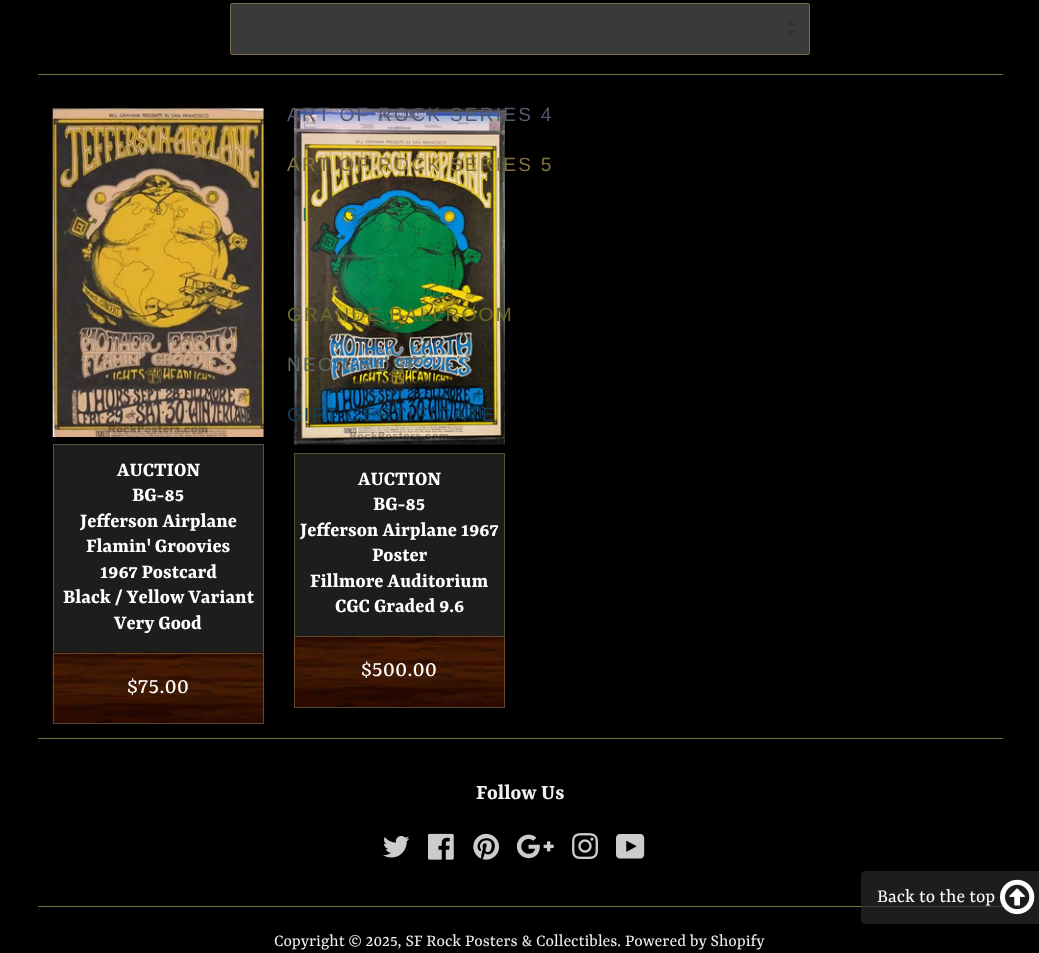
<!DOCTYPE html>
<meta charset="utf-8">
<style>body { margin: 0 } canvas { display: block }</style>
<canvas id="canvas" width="1039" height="953"></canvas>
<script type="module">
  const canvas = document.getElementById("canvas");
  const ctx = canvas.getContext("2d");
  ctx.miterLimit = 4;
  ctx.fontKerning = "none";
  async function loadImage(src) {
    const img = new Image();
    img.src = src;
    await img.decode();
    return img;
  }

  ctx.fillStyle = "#000000";
  ctx.fillRect(0, 0, 1039, 953);
  ctx.drawImage(await loadImage("img4.png"), 293, 108, 212, 337);
  ctx.letterSpacing = "2.25px";
  ctx.font = "19.1px Liberation Sans";
  ctx.fillStyle = "#54586d";
  ctx.fillText("ART OF ROCK SERIES 4", 287, 121);
  ctx.fillStyle = "#837140";
  ctx.fillText("ART OF ROCK SERIES 5", 287, 171);
  ctx.fillStyle = "#2b6a57";
  ctx.fillText("I", 302, 221);
  ctx.fillText("G", 343, 221);
  ctx.fillStyle = "#6a6b27";
  ctx.fillText("GRANDE BALLROOM", 287, 321);
  ctx.fillStyle = "#5c6764";
  ctx.fillText("NEON ROSE", 287, 371);
  ctx.fillStyle = "#153f59";
  ctx.fillText("GIFT CERTIFICATE", 287, 421);
  ctx.fillStyle = "#3a3a3a";
  ctx.beginPath();
  ctx.roundRect(230, 3, 580, 52, 2.5);
  ctx.fill();
  ctx.drawImage(await loadImage("img1.png"), 787, 20, 9, 16);
  ctx.beginPath();
  ctx.roundRect(230.5, 3.5, 579, 51, 2);
  ctx.strokeStyle = "#7b6e41";
  ctx.stroke();
  ctx.fillStyle = "#7b6e41";
  ctx.fillRect(38, 74, 965, 1);
  ctx.drawImage(await loadImage("img2.png"), 52, 108, 212, 329);
  ctx.fillStyle = "#1d1d1d";
  ctx.fillRect(54, 445, 209, 207);
  ctx.strokeStyle = "#5a5234";
  ctx.strokeRect(53.5, 444.5, 210, 209);
  ctx.letterSpacing = "0px";
  ctx.font = "bold 21.25px Rasa";
  ctx.fillStyle = "#ffffff";
  ctx.fillText("AUCTION", 117, 476);
  ctx.fillText("BG-85", 132, 501);
  ctx.fillText("Jefferson Airplane", 80, 527);
  ctx.fillText("Flamin' Groovies", 86, 552);
  ctx.fillText("1967 Postcard", 100, 578);
  ctx.fillText("Black / Yellow Variant", 63, 603);
  ctx.fillText("Very Good", 114, 629);
  ctx.drawImage(await loadImage("img3.png"), 52, 652, 212, 72);
  ctx.strokeStyle = "rgba(123, 110, 65, 0.65)";
  ctx.strokeRect(53.5, 653.5, 210, 70);
  ctx.font = "25.5px Rasa";
  ctx.fillText("$75.00", 127, 693);
  ctx.fillStyle = "#1d1d1d";
  ctx.fillRect(295, 454, 209, 182);
  ctx.strokeStyle = "#5a5234";
  ctx.strokeRect(294.5, 453.5, 210, 184);
  ctx.font = "bold 21.25px Rasa";
  ctx.fillStyle = "#ffffff";
  ctx.fillText("AUCTION", 358, 485);
  ctx.fillText("BG-85", 373, 510);
  ctx.fillText("Jefferson Airplane 1967", 300, 536);
  ctx.fillText("Poster", 372, 561);
  ctx.fillText("Fillmore Auditorium", 310, 587);
  ctx.fillText("CGC Graded 9.6", 335, 612);
  ctx.drawImage(await loadImage("img5.png"), 293, 635, 212, 72);
  ctx.strokeStyle = "rgba(123, 110, 65, 0.65)";
  ctx.strokeRect(294.5, 636.5, 210, 71);
  ctx.font = "25.5px Rasa";
  ctx.fillText("$500.00", 361, 676);
  ctx.fillStyle = "#7b6e41";
  ctx.fillRect(38, 738, 965, 1);
  ctx.font = "bold 22.5px Rasa";
  ctx.fillStyle = "#f2f0ee";
  ctx.fillText("Follow Us", 476, 799);
  ctx.drawImage(await loadImage("img6.png"), 383, 836, 27, 22);
  ctx.drawImage(await loadImage("img7.png"), 428, 833, 26, 27);
  ctx.drawImage(await loadImage("img8.png"), 473, 833, 27, 27);
  ctx.drawImage(await loadImage("img9.png"), 516, 834, 38, 25);
  ctx.drawImage(await loadImage("img10.png"), 572, 833, 26, 26);
  ctx.drawImage(await loadImage("img11.png"), 616, 834, 29, 25);
  ctx.fillStyle = "#7b6e41";
  ctx.fillRect(38, 906, 965, 1);
  ctx.font = "18.05px Rasa";
  ctx.fillStyle = "#f2f0ee";
  ctx.fillText("Copyright © 2025, SF Rock Posters & Collectibles. Powered by Shopify", 274, 946);
  ctx.fillStyle = "rgba(41, 41, 41, 0.7)";
  ctx.beginPath();
  ctx.moveTo(865, 871);
  ctx.lineTo(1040, 871);
  ctx.lineTo(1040, 924);
  ctx.lineTo(865, 924);
  ctx.bezierCurveTo(863, 924, 861, 922, 861, 920);
  ctx.lineTo(861, 875);
  ctx.bezierCurveTo(861, 873, 863, 871, 865, 871);
  ctx.closePath();
  ctx.fill();
  ctx.font = "20px Rasa";
  ctx.fillStyle = "#ffffff";
  ctx.fillText("Back to the top", 877, 902);
  ctx.drawImage(await loadImage("img12.png"), 1000, 879, 35, 36);
</script>
